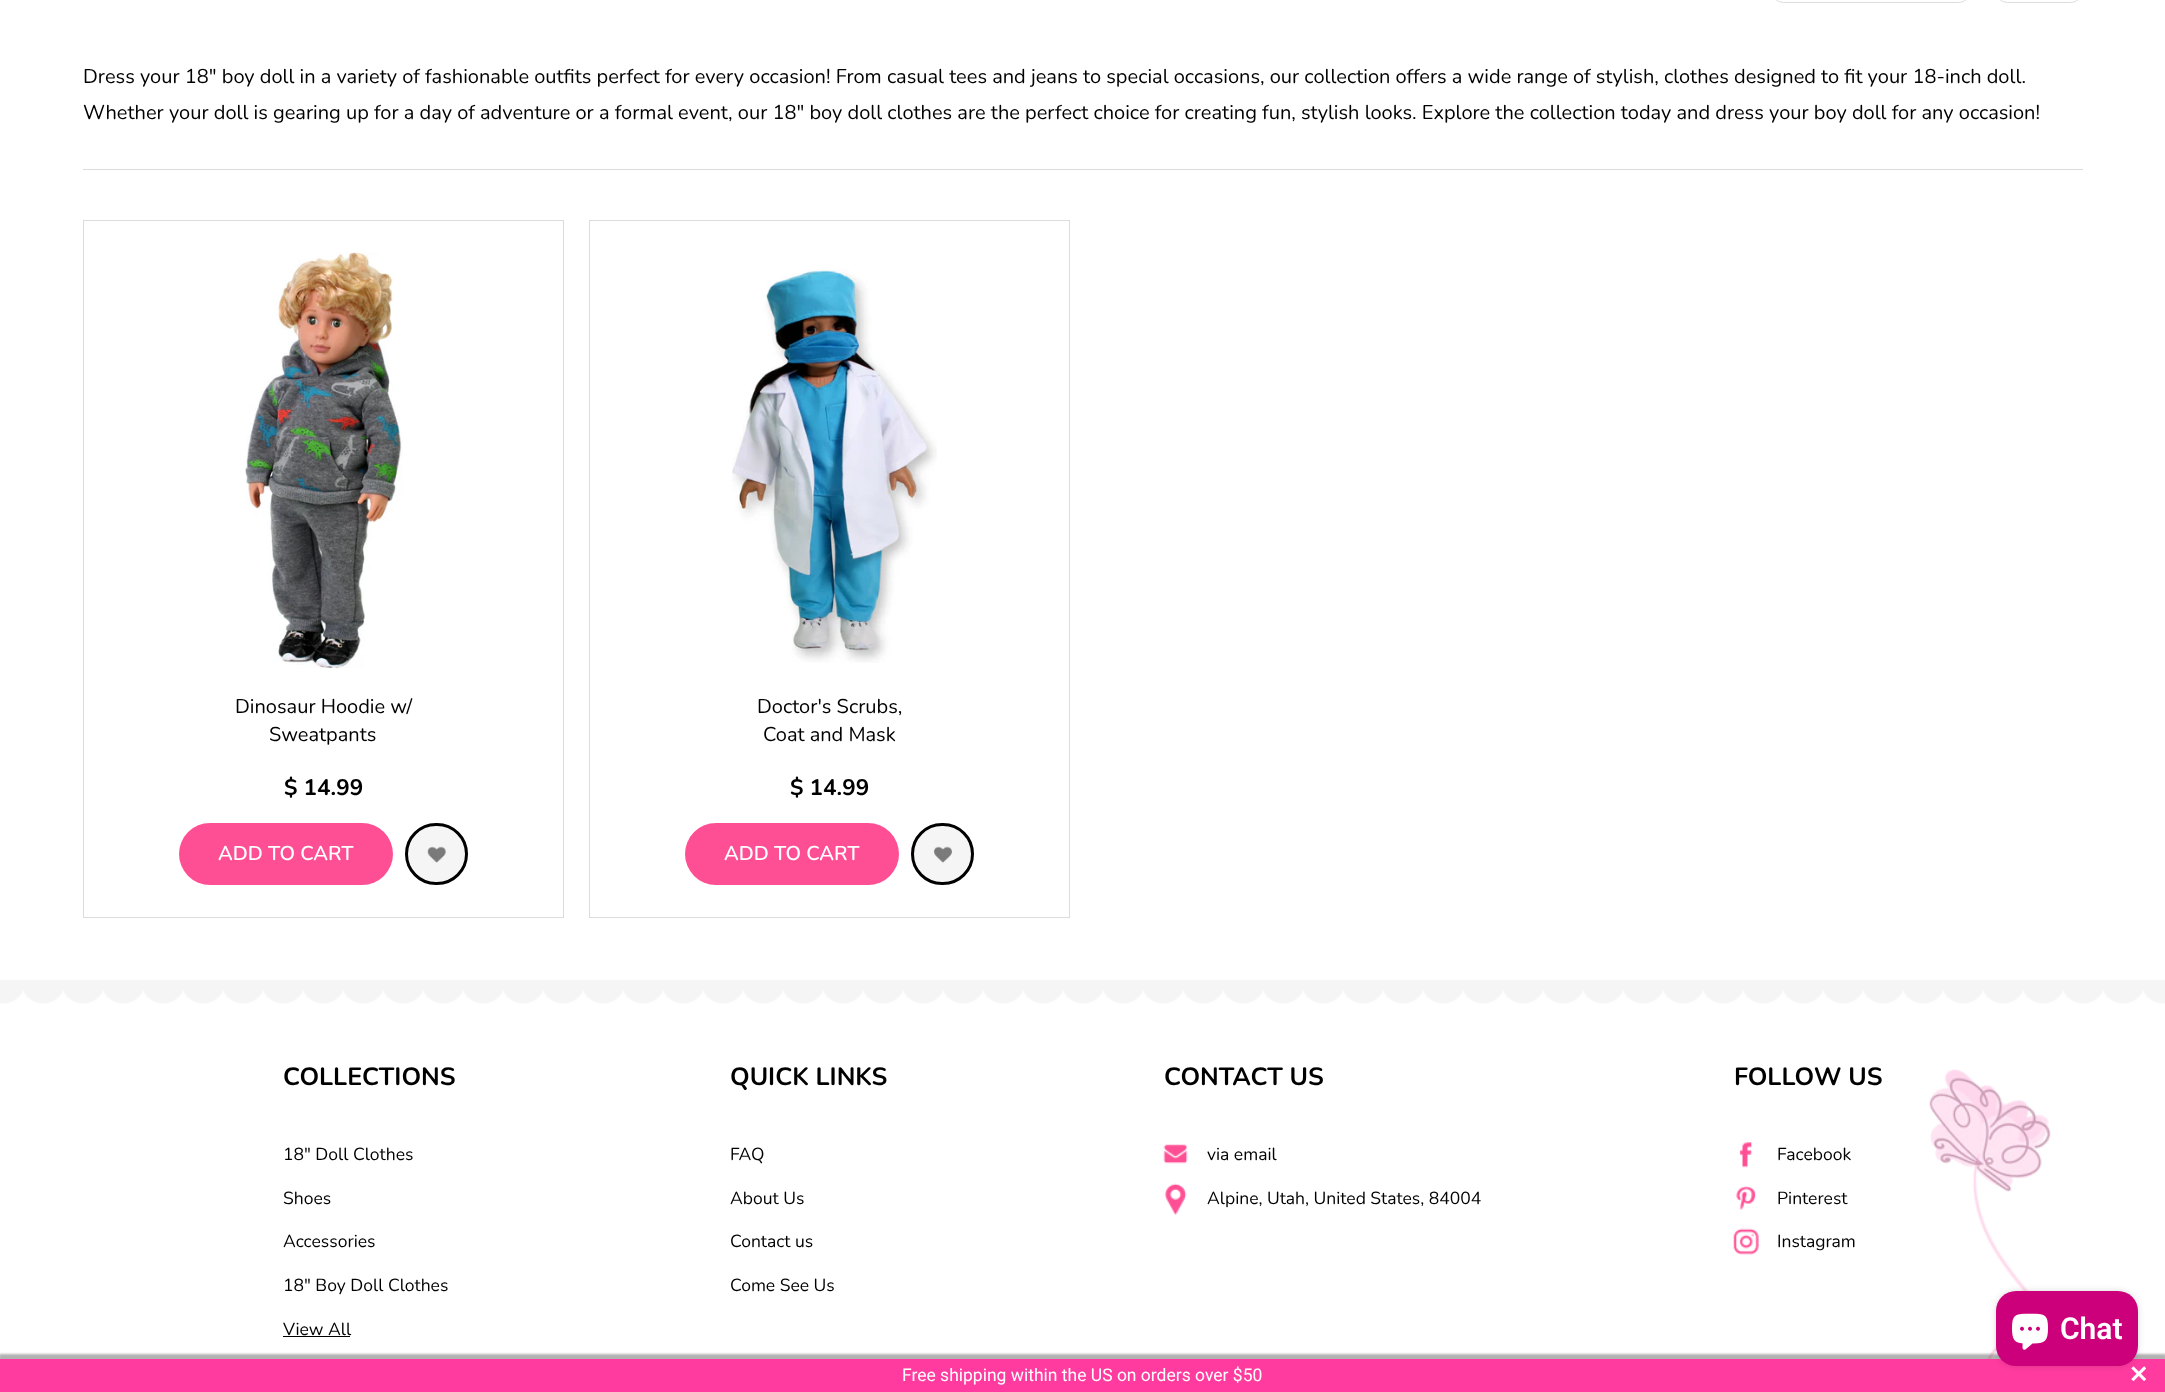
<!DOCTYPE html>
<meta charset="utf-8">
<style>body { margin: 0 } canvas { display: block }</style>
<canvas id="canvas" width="2165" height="1392"></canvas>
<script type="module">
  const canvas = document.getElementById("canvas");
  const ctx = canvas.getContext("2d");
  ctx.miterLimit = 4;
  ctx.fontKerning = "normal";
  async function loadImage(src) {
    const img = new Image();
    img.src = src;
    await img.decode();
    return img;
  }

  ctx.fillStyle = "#ffffff";
  ctx.fillRect(0, 0, 2165, 1392);
  ctx.beginPath();
  ctx.roundRect(1771.5, -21.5, 199, 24, 20.5);
  ctx.strokeStyle = "#dcdcdc";
  ctx.stroke();
  ctx.beginPath();
  ctx.roundRect(1995.5, -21.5, 87, 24, 20.5);
  ctx.stroke();
  ctx.font = "20px Nunito";
  ctx.fillStyle = "#000000";
  ctx.fillText("Dress your 18\" boy doll in a variety of fashionable outfits perfect for every occasion! From casual tees and jeans to special occasions, our collection offers a wide range of stylish, clothes designed to fit your 18-inch doll.", 83, 83);
  ctx.fillText("Whether your doll is gearing up for a day of adventure or a formal event, our 18\" boy doll clothes are the perfect choice for creating fun, stylish looks. Explore the collection today and dress your boy doll for any occasion!", 83, 119);
  ctx.fillStyle = "#dcdcdc";
  ctx.fillRect(83, 169, 2000, 1);
  ctx.strokeRect(83.5, 220.5, 480, 697);
  ctx.drawImage(await loadImage("img1.png"), 245, 252, 158, 417);
  ctx.fillStyle = "#000000";
  ctx.fillText("Dinosaur Hoodie w/", 235, 713);
  ctx.fillText("Sweatpants", 269, 741);
  ctx.font = "bold 22.5px Nunito";
  ctx.fillText("$ 14.99", 284, 795);
  ctx.fillStyle = "#ff4f94";
  ctx.beginPath();
  ctx.roundRect(179, 823, 214, 62, 31);
  ctx.fill();
  ctx.font = "600 20px Nunito";
  ctx.fillStyle = "#ffffff";
  ctx.fillText("ADD TO CART", 218, 860);
  ctx.fillStyle = "#f5f5f5";
  ctx.beginPath();
  ctx.roundRect(406.5, 824.5, 60, 59, 29.5);
  ctx.fill();
  ctx.strokeStyle = "#000000";
  ctx.lineWidth = 3;
  ctx.stroke();
  ctx.drawImage(await loadImage("img2.png"), 427, 846, 19, 17);
  ctx.strokeStyle = "#dcdcdc";
  ctx.lineWidth = 1;
  ctx.strokeRect(589.5, 220.5, 480, 697);
  ctx.drawImage(await loadImage("img3.png"), 732, 269, 205, 394);
  ctx.font = "20px Nunito";
  ctx.fillStyle = "#000000";
  ctx.fillText("Doctor's Scrubs,", 757, 713);
  ctx.fillText("Coat and Mask", 763, 741);
  ctx.font = "bold 22.5px Nunito";
  ctx.fillText("$ 14.99", 790, 795);
  ctx.fillStyle = "#ff4f94";
  ctx.beginPath();
  ctx.roundRect(685, 823, 214, 62, 31);
  ctx.fill();
  ctx.font = "600 20px Nunito";
  ctx.fillStyle = "#ffffff";
  ctx.fillText("ADD TO CART", 724, 860);
  ctx.fillStyle = "#f5f5f5";
  ctx.beginPath();
  ctx.roundRect(912.5, 824.5, 60, 59, 29.5);
  ctx.fill();
  ctx.strokeStyle = "#000000";
  ctx.lineWidth = 3;
  ctx.stroke();
  ctx.drawImage(await loadImage("img4.png"), 934, 846, 18, 17);
  ctx.drawImage(await loadImage("img5.png"), 0, 980, 2165, 24);
  ctx.font = "bold 25px Nunito";
  ctx.fillStyle = "#000000";
  ctx.fillText("COLLECTIONS", 283, 1085);
  ctx.font = "17.5px Nunito";
  ctx.fillText("18\" Doll Clothes", 283, 1160);
  ctx.fillText("Shoes", 283, 1204);
  ctx.fillText("Accessories", 283, 1247);
  ctx.fillText("18\" Boy Doll Clothes", 283, 1291);
  ctx.fillText("View All", 283, 1335);
  ctx.fillRect(283, 1336, 67, 1);
  ctx.font = "bold 25px Nunito";
  ctx.fillText("QUICK LINKS", 730, 1085);
  ctx.font = "17.5px Nunito";
  ctx.fillText("FAQ", 730, 1160);
  ctx.fillText("About Us", 730, 1204);
  ctx.fillText("Contact us", 730, 1247);
  ctx.fillText("Come See Us", 730, 1291);
  ctx.font = "bold 25px Nunito";
  ctx.fillText("CONTACT US", 1164, 1085);
  ctx.drawImage(await loadImage("img6.png"), 1163, 1144, 25, 20);
  ctx.font = "17.5px Nunito";
  ctx.fillText("via email", 1207, 1160);
  ctx.drawImage(await loadImage("img7.png"), 1164, 1183, 23, 32);
  ctx.fillText("Alpine, Utah, United States, 84004", 1207, 1204);
  ctx.font = "bold 25px Nunito";
  ctx.fillText("FOLLOW US", 1734, 1085);
  ctx.drawImage(await loadImage("img8.png"), 1739, 1142, 13, 26);
  ctx.font = "17.5px Nunito";
  ctx.fillText("Facebook", 1777, 1160);
  ctx.drawImage(await loadImage("img9.png"), 1736, 1186, 20, 24);
  ctx.fillText("Pinterest", 1777, 1204);
  ctx.drawImage(await loadImage("img10.png"), 1733, 1228, 26, 27);
  ctx.fillText("Instagram", 1777, 1247);
  ctx.drawImage(await loadImage("img11.png"), 1929, 1069, 122, 290);
  ctx.fillStyle = "rgba(0, 0, 0, 0.3)";
  ctx.filter = "blur(1px)";
  ctx.beginPath();
  ctx.rect(-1, 1354, 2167, 36);
  ctx.fill();
  ctx.filter = "none";
  ctx.fillStyle = "#ff3ba0";
  ctx.fillRect(0, 1359, 2165, 33);
  ctx.drawImage(await loadImage("img13.png"), 2131, 1366, 15, 15);
  ctx.fillStyle = "rgba(0, 0, 0, 0.15)";
  ctx.filter = "blur(3px)";
  ctx.beginPath();
  ctx.roundRect(1996, 1291, 142, 75, 20);
  ctx.fill();
  ctx.filter = "none";
  ctx.fillStyle = "#cd007b";
  ctx.beginPath();
  ctx.roundRect(1996, 1291, 142, 75, 20);
  ctx.fill();
  ctx.drawImage(await loadImage("img12.png"), 2012, 1313, 36, 37);
  ctx.font = "600 30px Roboto";
  ctx.fillStyle = "#ffffff";
  ctx.fillText("Chat", 2060, 1339);
  ctx.font = "17.5px Roboto";
  ctx.fillText("Free shipping within the US on orders over $50", 902, 1381);
</script>
